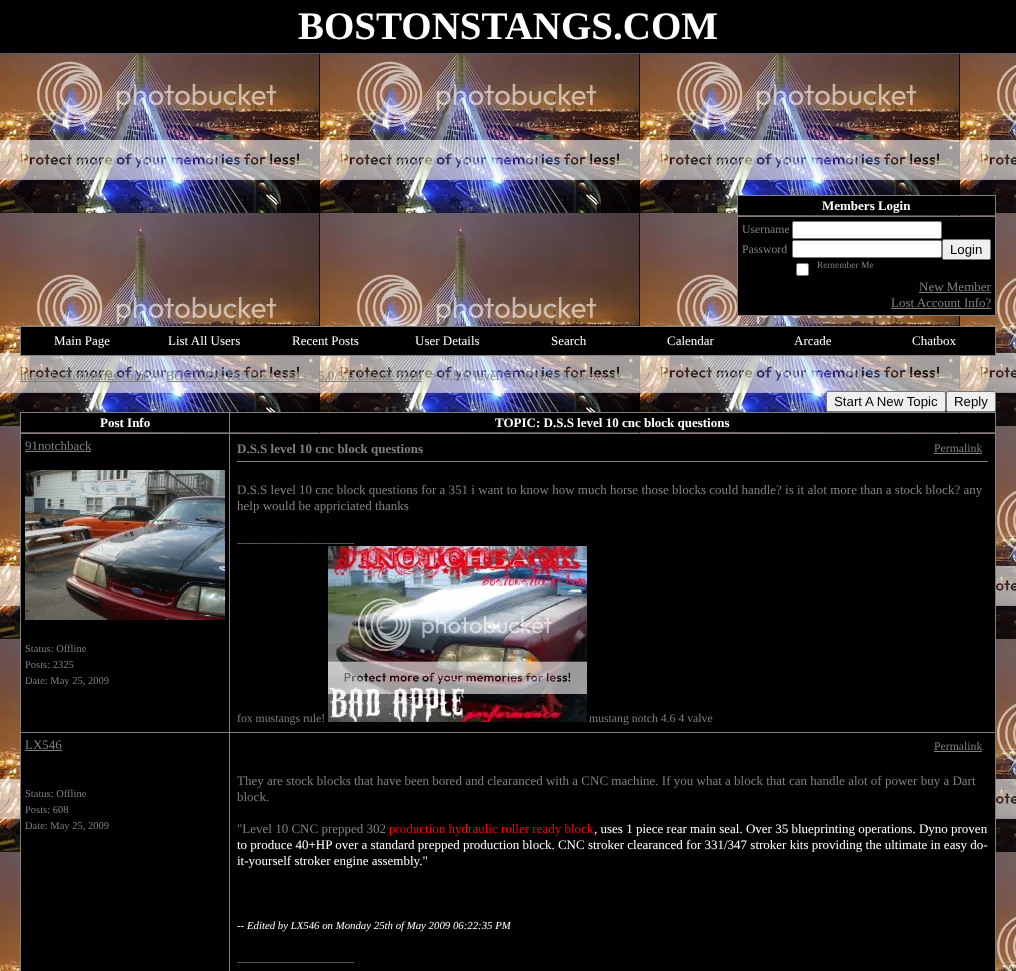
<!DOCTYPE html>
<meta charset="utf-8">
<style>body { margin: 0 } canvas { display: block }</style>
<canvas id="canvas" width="1016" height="971"></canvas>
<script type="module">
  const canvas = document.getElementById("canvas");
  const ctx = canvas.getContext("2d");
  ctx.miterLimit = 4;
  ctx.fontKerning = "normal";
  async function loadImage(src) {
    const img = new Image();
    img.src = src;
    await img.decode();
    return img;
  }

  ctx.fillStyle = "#ffffff";
  ctx.fillRect(0, 0, 1016, 971);
  ctx.drawImage(await loadImage("img1.png"), 0, 54, 1016, 917);
  ctx.fillStyle = "#000000";
  ctx.fillRect(0, 0, 1016, 53);
  ctx.fillStyle = "#525e6e";
  ctx.fillRect(0, 53, 1016, 1);
  ctx.font = "bold 39px Liberation Serif";
  ctx.fillStyle = "#ffffff";
  ctx.fillText("BOSTONSTANGS.COM", 298, 39);
  ctx.fillStyle = "#808080";
  ctx.fillRect(737, 195, 259, 1);
  ctx.fillRect(995, 195, 1, 121);
  ctx.fillRect(737, 315, 259, 1);
  ctx.fillRect(737, 195, 1, 121);
  ctx.fillStyle = "#000000";
  ctx.fillRect(738, 196, 257, 19);
  ctx.fillStyle = "#808080";
  ctx.fillRect(737, 216, 259, 1);
  ctx.font = "bold 13px Liberation Serif";
  ctx.fillStyle = "#ffffff";
  ctx.fillText("Members Login", 822, 210);
  ctx.fillStyle = "#000000";
  ctx.fillRect(738, 217, 257, 98);
  ctx.font = "11.75px Liberation Serif";
  ctx.fillStyle = "#808080";
  ctx.fillText("Username", 742, 233);
  ctx.fillStyle = "#ffffff";
  ctx.beginPath();
  ctx.roundRect(792.5, 221.5, 149, 17, 1.5);
  ctx.fill();
  ctx.strokeStyle = "#767676";
  ctx.stroke();
  ctx.fillStyle = "#808080";
  ctx.fillText("Password", 742, 253);
  ctx.fillStyle = "#ffffff";
  ctx.beginPath();
  ctx.roundRect(792.5, 240.5, 149, 17, 1.5);
  ctx.fill();
  ctx.stroke();
  ctx.fillStyle = "#efefef";
  ctx.beginPath();
  ctx.roundRect(942.5, 239.5, 48, 20, 1.5);
  ctx.fill();
  ctx.stroke();
  ctx.font = "13.25px Liberation Sans";
  ctx.fillStyle = "#000000";
  ctx.fillText("Login", 950, 254);
  ctx.fillStyle = "#ffffff";
  ctx.beginPath();
  ctx.roundRect(796.5, 263.5, 12, 12, 1.5);
  ctx.fill();
  ctx.stroke();
  ctx.font = "9.5px Liberation Serif";
  ctx.fillStyle = "#808080";
  ctx.fillText("Remember Me", 817, 268);
  ctx.font = "13px Liberation Serif";
  ctx.fillText("New Member", 919, 291);
  ctx.fillRect(919, 292, 72, 1);
  ctx.fillText("Lost Account Info?", 891, 307);
  ctx.fillRect(891, 308, 100, 1);
  ctx.strokeStyle = "#808080";
  ctx.strokeRect(20.5, 326.5, 975, 29);
  ctx.fillStyle = "#000000";
  ctx.fillRect(21, 327, 974, 28);
  ctx.fillStyle = "#ffffff";
  ctx.fillText("Main Page", 54, 345);
  ctx.fillText("List All Users", 168, 345);
  ctx.fillText("Recent Posts", 292, 345);
  ctx.fillText("User Details", 415, 345);
  ctx.fillText("Search", 551, 345);
  ctx.fillText("Calendar", 667, 345);
  ctx.fillText("Arcade", 794, 345);
  ctx.fillText("Chatbox", 912, 345);
  ctx.fillStyle = "#808080";
  ctx.fillRect(20, 381, 131, 1);
  ctx.fillText("http://bostonstangs.com/ -> BOSTONSTANGS.COM ->", 20, 380);
  ctx.fillRect(318, 381, 104, 1);
  ctx.fillText("5.0/5.8 Engine Tech -> D.S.S level 10 cnc block questions", 318, 380);
  ctx.fillRect(166, 381, 134, 1);
  ctx.fillStyle = "#efefef";
  ctx.beginPath();
  ctx.roundRect(826.5, 391.5, 119, 20, 1.5);
  ctx.fill();
  ctx.strokeStyle = "#767676";
  ctx.stroke();
  ctx.font = "13.25px Liberation Sans";
  ctx.fillStyle = "#000000";
  ctx.fillText("Start A New Topic", 834, 406);
  ctx.fillStyle = "#efefef";
  ctx.beginPath();
  ctx.roundRect(946.5, 391.5, 49, 20, 1.5);
  ctx.fill();
  ctx.stroke();
  ctx.fillStyle = "#000000";
  ctx.fillText("Reply", 954, 406);
  ctx.fillStyle = "#808080";
  ctx.fillRect(20, 412, 976, 1);
  ctx.fillRect(995, 412, 1, 559);
  ctx.fillRect(20, 412, 1, 559);
  ctx.fillStyle = "#000000";
  ctx.fillRect(21, 413, 208, 19);
  ctx.fillStyle = "#808080";
  ctx.fillRect(229, 433, 767, 1);
  ctx.fillRect(229, 732, 767, 1);
  ctx.fillRect(229, 732, 1, 239);
  ctx.fillRect(20, 732, 210, 1);
  ctx.fillRect(229, 433, 1, 300);
  ctx.fillRect(20, 433, 210, 1);
  ctx.fillRect(229, 412, 1, 22);
  ctx.font = "bold 13px Liberation Serif";
  ctx.fillStyle = "#ffffff";
  ctx.fillText("Post Info", 100, 427);
  ctx.fillStyle = "#000000";
  ctx.fillRect(230, 413, 765, 19);
  ctx.fillStyle = "#ffffff";
  ctx.fillText("TOPIC: D.S.S level 10 cnc block questions", 495, 427);
  ctx.fillStyle = "#000000";
  ctx.fillRect(21, 434, 208, 298);
  ctx.font = "13px Liberation Serif";
  ctx.fillStyle = "#808080";
  ctx.fillText("91notchback", 25, 450);
  ctx.fillRect(25, 451, 66, 1);
  ctx.drawImage(await loadImage("img2.png"), 25, 470, 200, 150);
  ctx.font = "10.5px Liberation Serif";
  ctx.fillText("Status: Offline", 25, 652);
  ctx.fillText("Posts: 2325", 25, 668);
  ctx.fillText("Date: May 25, 2009", 25, 684);
  ctx.fillStyle = "#000000";
  ctx.fillRect(230, 434, 765, 298);
  ctx.font = "bold 13px Liberation Serif";
  ctx.fillStyle = "#808080";
  ctx.fillText("D.S.S level 10 cnc block questions", 237, 453);
  ctx.font = "11.75px Liberation Serif";
  ctx.fillText("Permalink", 934, 452);
  ctx.fillRect(934, 453, 48, 1);
  ctx.fillRect(237, 461, 751, 1);
  ctx.font = "13px Liberation Serif";
  ctx.fillText("D.S.S level 10 cnc block questions for a 351 i want to know how much horse those blocks could handle? is it alot more than a stock block? any", 237, 494);
  ctx.fillText("help would be appriciated thanks", 237, 510);
  ctx.fillText("__________________", 237, 542);
  ctx.font = "11.75px Liberation Serif";
  ctx.fillText("fox mustangs rule!", 237, 722);
  ctx.drawImage(await loadImage("img3.png"), 328, 546, 259, 176);
  ctx.fillText("mustang notch 4.6 4 valve", 589, 722);
  ctx.fillStyle = "#000000";
  ctx.fillRect(21, 733, 208, 238);
  ctx.font = "13px Liberation Serif";
  ctx.fillStyle = "#808080";
  ctx.fillText("LX546", 25, 749);
  ctx.fillRect(25, 750, 37, 1);
  ctx.font = "10.5px Liberation Serif";
  ctx.fillText("Status: Offline", 25, 797);
  ctx.fillText("Posts: 608", 25, 813);
  ctx.fillText("Date: May 25, 2009", 25, 829);
  ctx.fillStyle = "#000000";
  ctx.fillRect(230, 733, 765, 238);
  ctx.font = "11.75px Liberation Serif";
  ctx.fillStyle = "#808080";
  ctx.fillText("Permalink", 934, 750);
  ctx.fillRect(934, 751, 48, 1);
  ctx.font = "13px Liberation Serif";
  ctx.fillText("They are stock blocks that have been bored and clearanced with a CNC machine. If you what a block that can handle alot of power buy a Dart", 237, 785);
  ctx.fillText("block.", 237, 801);
  ctx.fillText("\"Level 10 CNC prepped 302", 237, 833);
  ctx.fillStyle = "#ff0000";
  ctx.fillText("production hydraulic roller ready block", 389, 833);
  ctx.fillStyle = "#ffffff";
  ctx.fillText(", uses 1 piece rear main seal. Over 35 blueprinting operations. Dyno proven", 594, 833);
  ctx.fillText("to produce 40+HP over a standard prepped production block. CNC stroker clearanced for 331/347 stroker kits providing the ultimate in easy do-", 237, 849);
  ctx.fillText("it-yourself stroker engine assembly.\"", 237, 865);
  ctx.font = "italic 10.8px Liberation Serif";
  ctx.fillText("-- Edited by LX546 on Monday 25th of May 2009 06:22:35 PM", 237, 929);
  ctx.font = "13px Liberation Serif";
  ctx.fillStyle = "#808080";
  ctx.fillText("__________________", 237, 961);
</script>
